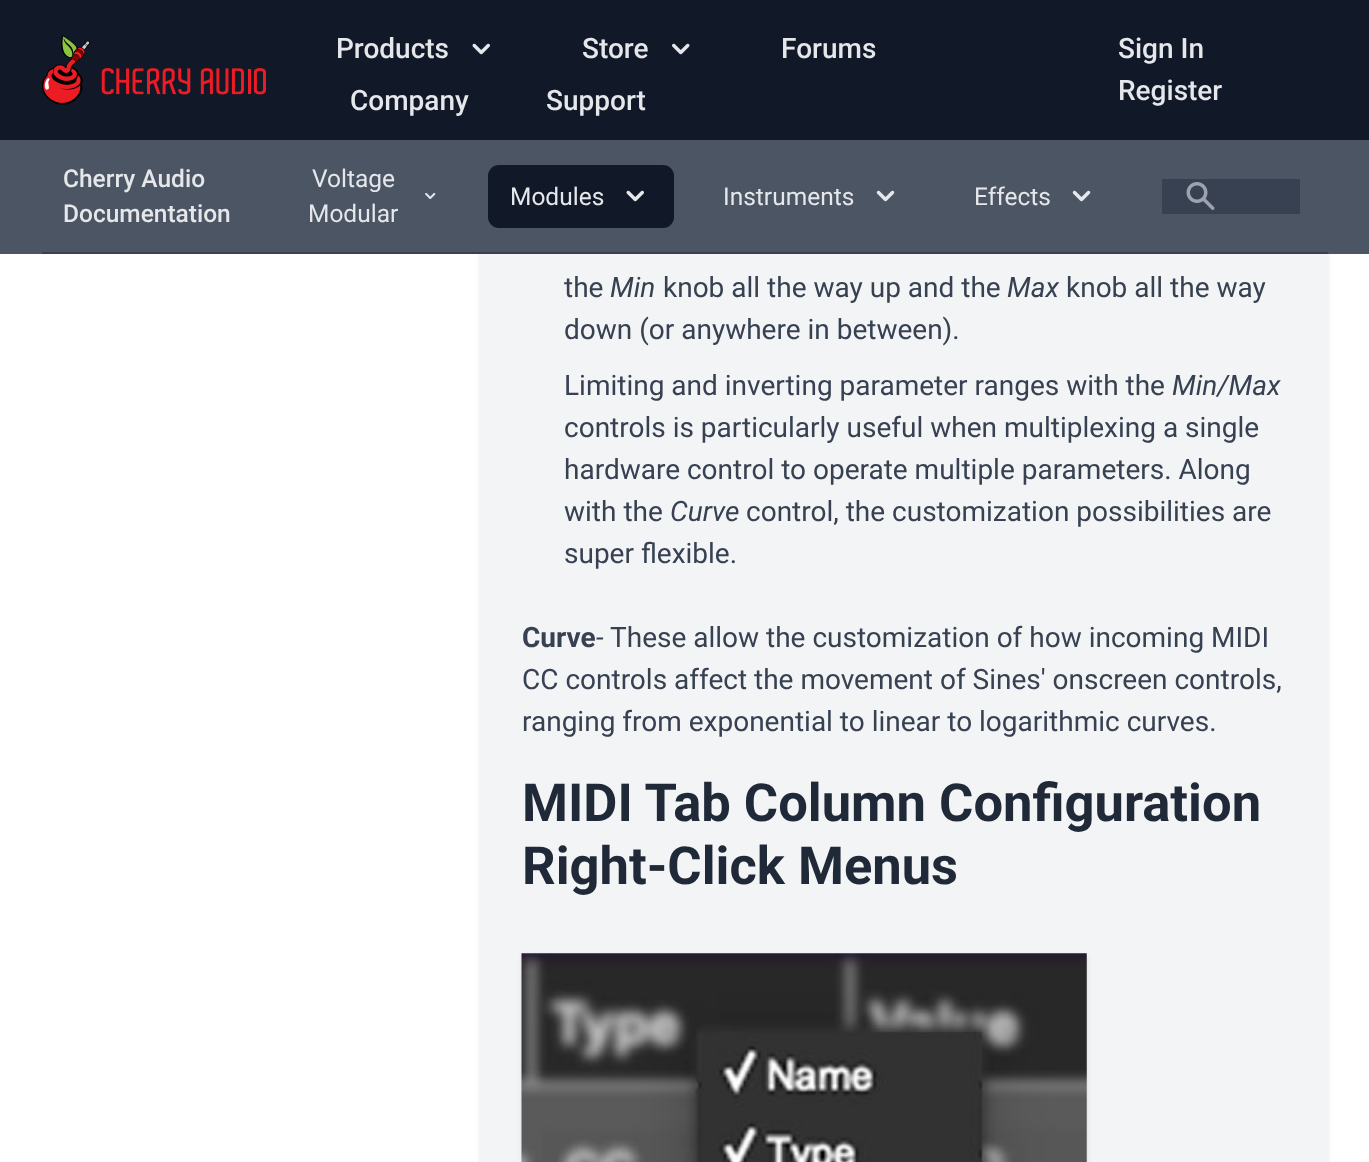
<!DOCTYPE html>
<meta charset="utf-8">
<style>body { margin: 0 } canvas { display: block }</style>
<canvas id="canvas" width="1369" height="1162"></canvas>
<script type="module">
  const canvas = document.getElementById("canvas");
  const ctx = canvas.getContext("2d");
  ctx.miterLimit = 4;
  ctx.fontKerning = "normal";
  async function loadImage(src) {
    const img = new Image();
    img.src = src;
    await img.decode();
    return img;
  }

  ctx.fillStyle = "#ffffff";
  ctx.fillRect(0, 0, 1369, 1162);
  ctx.fillStyle = "rgba(0, 0, 0, 0.1)";
  ctx.filter = "blur(2.5px)";
  ctx.beginPath();
  ctx.roundRect(480, -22, 848, 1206, 14);
  ctx.fill();
  ctx.filter = "none";
  ctx.fillStyle = "#111827";
  ctx.fillRect(0, 0, 1369, 140);
  ctx.drawImage(await loadImage("img1.png"), 42, 35, 224, 70);
  ctx.font = "500 28px Roboto";
  ctx.fillStyle = "#e5e7eb";
  ctx.fillText("Products", 336, 58);
  ctx.drawImage(await loadImage("img2.png"), 472, 43, 18, 12);
  ctx.fillText("Store", 582, 58);
  ctx.drawImage(await loadImage("img3.png"), 672, 43, 18, 12);
  ctx.fillText("Forums", 781, 58);
  ctx.fillText("Company", 350, 110);
  ctx.fillText("Support", 546, 110);
  ctx.fillText("Sign In", 1118, 58);
  ctx.fillText("Register", 1118, 100);
  ctx.fillStyle = "#4b5563";
  ctx.fillRect(0, 140, 1369, 114);
  ctx.fillStyle = "#374151";
  ctx.fillRect(42, 252, 1286, 2);
  ctx.font = "500 24.5px Roboto";
  ctx.fillStyle = "#e5e7eb";
  ctx.fillText("Cherry Audio", 63, 187);
  ctx.fillText("Documentation", 63, 222);
  ctx.font = "24.5px Roboto";
  ctx.fillText("Voltage", 312, 187);
  ctx.drawImage(await loadImage("img4.png"), 425, 192, 11, 7);
  ctx.fillText("Modular", 308, 222);
  ctx.fillStyle = "#111827";
  ctx.beginPath();
  ctx.roundRect(488, 165, 186, 63, 11);
  ctx.fill();
  ctx.fillStyle = "#e5e7eb";
  ctx.fillText("Modules", 510, 205);
  ctx.drawImage(await loadImage("img2.png"), 626, 190, 18, 12);
  ctx.fillText("Instruments", 723, 205);
  ctx.drawImage(await loadImage("img5.png"), 876, 190, 19, 12);
  ctx.fillText("Effects", 974, 205);
  ctx.drawImage(await loadImage("img5.png"), 1072, 190, 19, 12);
  ctx.fillStyle = "#374151";
  ctx.fillRect(1162, 179, 138, 35);
  ctx.drawImage(await loadImage("img6.png"), 1186, 182, 29, 28);
  ctx.fillStyle = "#f3f4f6";
  ctx.fillRect(480, 254, 848, 908);
  ctx.font = "28px Roboto";
  ctx.fillStyle = "#374151";
  ctx.fillText("the", 564, 297);
  ctx.font = "italic 28px Roboto";
  ctx.fillText("Min", 610, 297);
  ctx.font = "28px Roboto";
  ctx.fillText("knob all the way up and the", 663, 297);
  ctx.font = "italic 28px Roboto";
  ctx.fillText("Max", 1007, 297);
  ctx.font = "28px Roboto";
  ctx.fillText("knob all the way", 1066, 297);
  ctx.fillText("down (or anywhere in between).", 564, 339);
  ctx.fillText("Limiting and inverting parameter ranges with the", 564, 395);
  ctx.font = "italic 28px Roboto";
  ctx.fillText("Min/Max", 1172, 395);
  ctx.font = "28px Roboto";
  ctx.fillText("controls is particularly useful when multiplexing a single", 564, 437);
  ctx.fillText("hardware control to operate multiple parameters. Along", 564, 479);
  ctx.fillText("with the", 564, 521);
  ctx.font = "italic 28px Roboto";
  ctx.fillText("Curve", 670, 521);
  ctx.font = "28px Roboto";
  ctx.fillText("control, the customization possibilities are", 746, 521);
  ctx.fillText("super flexible.", 564, 563);
  ctx.font = "bold 28px Roboto";
  ctx.fillText("Curve", 522, 647);
  ctx.font = "italic 28px Roboto";
  ctx.fillText("-", 596, 647);
  ctx.font = "28px Roboto";
  ctx.fillText("These allow the customization of how incoming MIDI", 610, 647);
  ctx.fillText("CC controls affect the movement of Sines' onscreen controls,", 522, 689);
  ctx.fillText("ranging from exponential to linear to logarithmic curves.", 522, 731);
  ctx.font = "bold 52.5px Roboto";
  ctx.fillStyle = "#1f2937";
  ctx.fillText("MIDI Tab Column Configuration", 522, 821);
  ctx.fillText("Right-Click Menus", 522, 884);
  ctx.fillStyle = "rgba(0, 0, 0, 0.1)";
  ctx.filter = "blur(2.5px)";
  ctx.beginPath();
  ctx.rect(522, 956, 565, 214);
  ctx.fill();
  ctx.filter = "none";
  ctx.drawImage(await loadImage("img7.png"), 521, 953, 566, 209);
</script>
